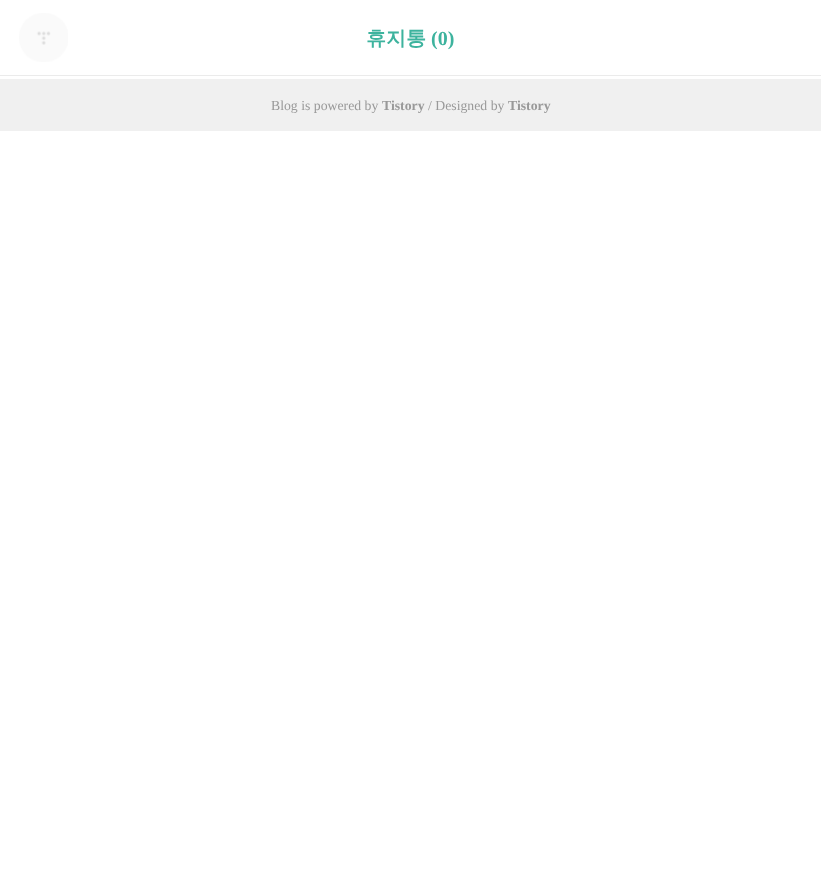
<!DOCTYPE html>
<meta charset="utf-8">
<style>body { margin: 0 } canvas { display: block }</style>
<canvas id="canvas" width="821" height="878"></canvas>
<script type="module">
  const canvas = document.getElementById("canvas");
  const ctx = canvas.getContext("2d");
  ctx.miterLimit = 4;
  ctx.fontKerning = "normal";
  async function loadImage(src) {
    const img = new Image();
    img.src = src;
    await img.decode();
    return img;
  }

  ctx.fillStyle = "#ffffff";
  ctx.fillRect(0, 0, 821, 878);
  ctx.fillStyle = "#ebebeb";
  ctx.fillRect(0, 75, 821, 1);
  ctx.drawImage(await loadImage("img1.png"), 19, 13, 49, 49);
  ctx.font = "bold 20px WenQuanYi Zen Hei";
  ctx.fillStyle = "#3db39e";
  ctx.fillText("휴지통", 366, 45);
  ctx.font = "bold 20px Liberation Serif";
  ctx.fillText("(0)", 431, 45);
  ctx.fillStyle = "#f0f0f0";
  ctx.fillRect(0, 79, 821, 52);
  ctx.font = "13.75px Liberation Serif";
  ctx.fillStyle = "#999999";
  ctx.fillText("Blog is powered by", 271, 110);
  ctx.font = "bold 13.75px Liberation Serif";
  ctx.fillText("Tistory", 382, 110);
  ctx.font = "13.75px Liberation Serif";
  ctx.fillText("/ Designed by", 428, 110);
  ctx.font = "bold 13.75px Liberation Serif";
  ctx.fillText("Tistory", 508, 110);
</script>
